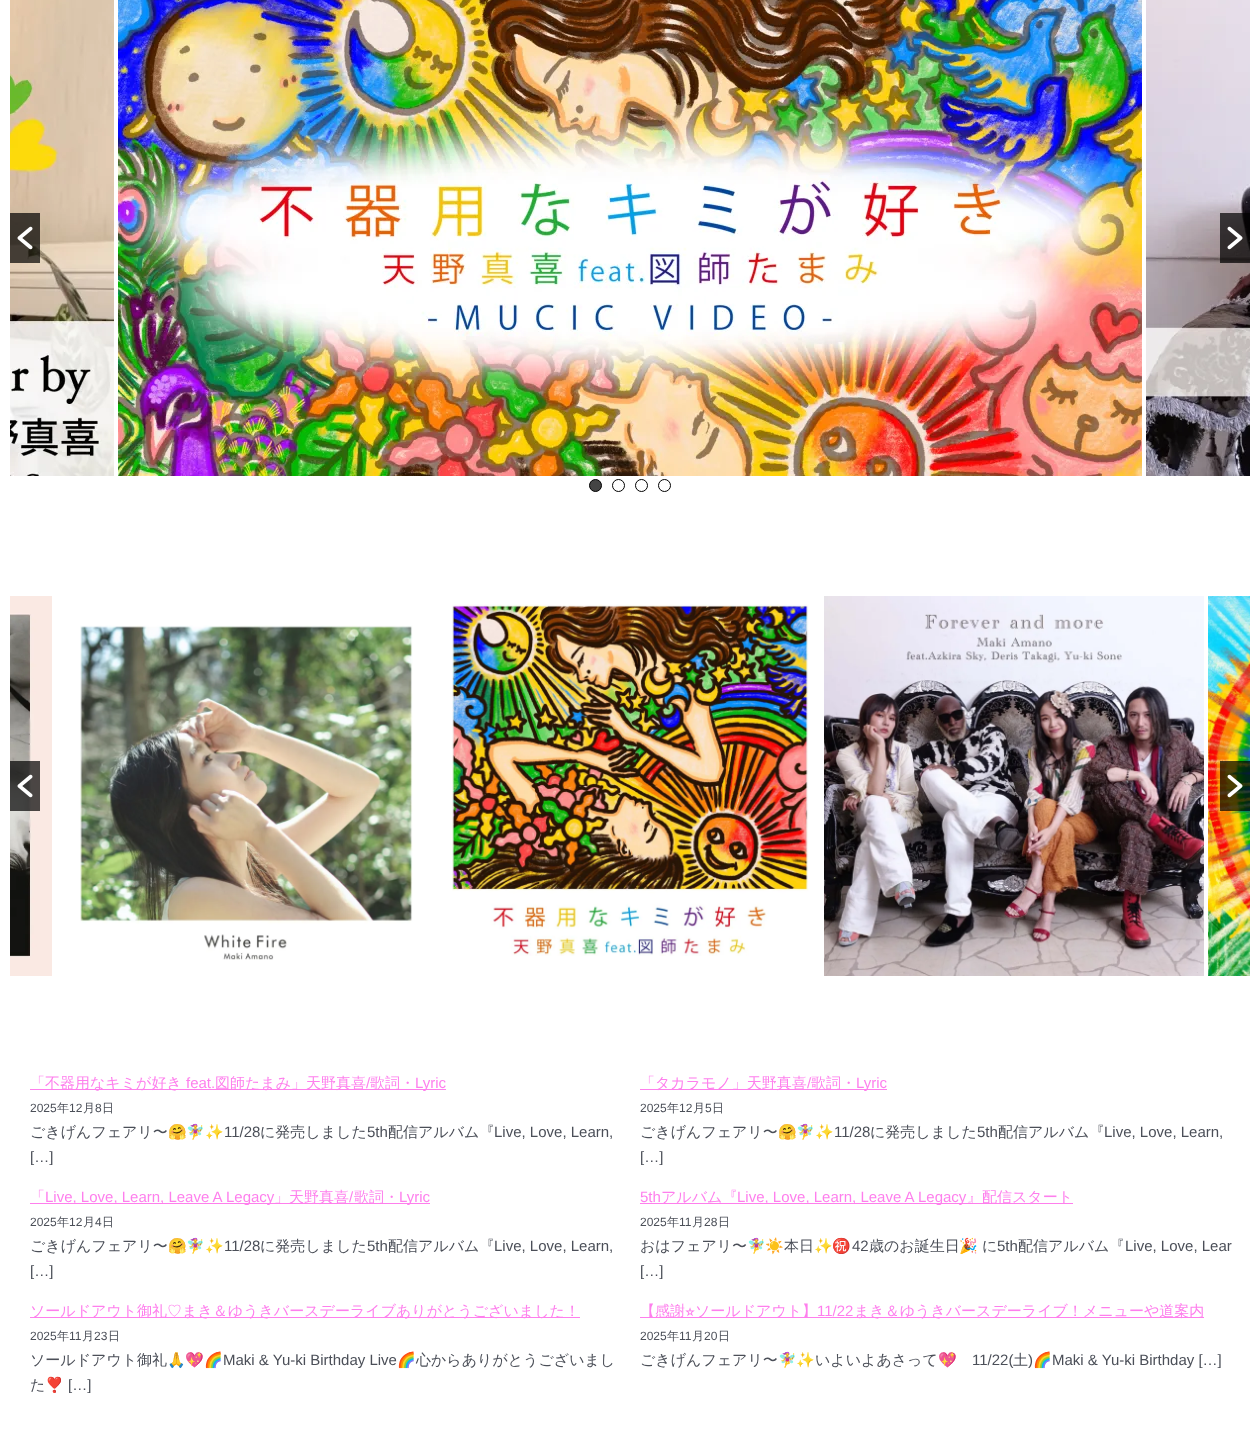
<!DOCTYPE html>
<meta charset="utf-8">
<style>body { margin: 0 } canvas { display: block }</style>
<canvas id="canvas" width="1260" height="1445"></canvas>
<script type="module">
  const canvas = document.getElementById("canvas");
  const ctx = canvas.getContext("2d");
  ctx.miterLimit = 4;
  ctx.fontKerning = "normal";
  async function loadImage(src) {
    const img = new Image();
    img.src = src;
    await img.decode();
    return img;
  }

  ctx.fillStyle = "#ffffff";
  ctx.fillRect(0, 0, 1260, 1445);
  ctx.drawImage(await loadImage("img1.png"), 10, 0, 104, 476);
  ctx.drawImage(await loadImage("img2.png"), 118, 0, 1024, 476);
  ctx.drawImage(await loadImage("img3.png"), 1146, 0, 104, 476);
  ctx.fillStyle = "rgba(0, 0, 0, 0.7)";
  ctx.fillRect(10, 213, 30, 50);
  ctx.drawImage(await loadImage("img4.png"), 17, 226, 16, 24);
  ctx.fillRect(1220, 213, 30, 50);
  ctx.drawImage(await loadImage("img5.png"), 1227, 226, 16, 24);
  ctx.fillStyle = "#444444";
  ctx.beginPath();
  ctx.arc(595.5, 485.5, 6, 0, Math.PI * 2);
  ctx.fill();
  ctx.strokeStyle = "#000000";
  ctx.stroke();
  ctx.beginPath();
  ctx.arc(618.5, 485.5, 6, 0, Math.PI * 2);
  ctx.stroke();
  ctx.beginPath();
  ctx.arc(641.5, 485.5, 6, 0, Math.PI * 2);
  ctx.stroke();
  ctx.beginPath();
  ctx.arc(664.5, 485.5, 6, 0, Math.PI * 2);
  ctx.stroke();
  ctx.drawImage(await loadImage("img6.png"), 10, 596, 42, 380);
  ctx.drawImage(await loadImage("img7.png"), 80, 625, 333, 335);
  ctx.drawImage(await loadImage("img8.png"), 452, 604, 357, 352);
  ctx.drawImage(await loadImage("img9.png"), 824, 596, 380, 380);
  ctx.drawImage(await loadImage("img10.png"), 1208, 596, 42, 380);
  ctx.fillStyle = "rgba(0, 0, 0, 0.7)";
  ctx.fillRect(10, 761, 30, 50);
  ctx.drawImage(await loadImage("img11.png"), 17, 774, 16, 24);
  ctx.fillRect(1220, 761, 30, 50);
  ctx.drawImage(await loadImage("img12.png"), 1227, 774, 16, 24);
  ctx.fillStyle = "#fe7fed";
  ctx.fillRect(30, 1089, 416, 1);
  ctx.font = "500 15px WenQuanYi Zen Hei";
  ctx.fillText("「不器用なキミが好き", 30, 1088);
  ctx.font = "15px Liberation Sans";
  ctx.fillText("feat.", 186, 1088);
  ctx.font = "500 15px WenQuanYi Zen Hei";
  ctx.fillText("図師たまみ」天野真喜", 215, 1088);
  ctx.font = "15px Liberation Sans";
  ctx.fillText("/", 366, 1088);
  ctx.font = "500 15px WenQuanYi Zen Hei";
  ctx.fillText("歌詞・", 370, 1088);
  ctx.font = "15px Liberation Sans";
  ctx.fillText("Lyric", 415, 1088);
  ctx.font = "12px Liberation Sans";
  ctx.fillStyle = "#4b4f58";
  ctx.fillText("2025", 30, 1112);
  ctx.font = "500 12px WenQuanYi Zen Hei";
  ctx.fillText("年", 57, 1112);
  ctx.font = "12px Liberation Sans";
  ctx.fillText("12", 69, 1112);
  ctx.font = "500 12px WenQuanYi Zen Hei";
  ctx.fillText("月", 83, 1112);
  ctx.font = "12px Liberation Sans";
  ctx.fillText("8", 95, 1112);
  ctx.font = "500 12px WenQuanYi Zen Hei";
  ctx.fillText("日", 102, 1112);
  ctx.font = "500 15px WenQuanYi Zen Hei";
  ctx.fillText("ごきげんフェアリ〜", 30, 1137);
  ctx.font = "15px Noto Color Emoji";
  ctx.fillText("🤗🧚‍♀️✨", 168, 1137);
  ctx.font = "15px Liberation Sans";
  ctx.fillText("11/28", 224, 1137);
  ctx.font = "500 15px WenQuanYi Zen Hei";
  ctx.fillText("に発売しました", 260, 1137);
  ctx.font = "15px Liberation Sans";
  ctx.fillText("5th", 367, 1137);
  ctx.font = "500 15px WenQuanYi Zen Hei";
  ctx.fillText("配信アルバム『", 388, 1137);
  ctx.font = "15px Liberation Sans";
  ctx.fillText("Live, Love, Learn,", 494, 1137);
  ctx.fillText("[…]", 30, 1162);
  ctx.fillStyle = "#fe7fed";
  ctx.fillRect(640, 1089, 247, 1);
  ctx.font = "500 15px WenQuanYi Zen Hei";
  ctx.fillText("「タカラモノ」天野真喜", 640, 1088);
  ctx.font = "15px Liberation Sans";
  ctx.fillText("/", 807, 1088);
  ctx.font = "500 15px WenQuanYi Zen Hei";
  ctx.fillText("歌詞・", 811, 1088);
  ctx.font = "15px Liberation Sans";
  ctx.fillText("Lyric", 856, 1088);
  ctx.font = "12px Liberation Sans";
  ctx.fillStyle = "#4b4f58";
  ctx.fillText("2025", 640, 1112);
  ctx.font = "500 12px WenQuanYi Zen Hei";
  ctx.fillText("年", 667, 1112);
  ctx.font = "12px Liberation Sans";
  ctx.fillText("12", 679, 1112);
  ctx.font = "500 12px WenQuanYi Zen Hei";
  ctx.fillText("月", 693, 1112);
  ctx.font = "12px Liberation Sans";
  ctx.fillText("5", 705, 1112);
  ctx.font = "500 12px WenQuanYi Zen Hei";
  ctx.fillText("日", 712, 1112);
  ctx.font = "500 15px WenQuanYi Zen Hei";
  ctx.fillText("ごきげんフェアリ〜", 640, 1137);
  ctx.font = "15px Noto Color Emoji";
  ctx.fillText("🤗🧚‍♀️✨", 778, 1137);
  ctx.font = "15px Liberation Sans";
  ctx.fillText("11/28", 834, 1137);
  ctx.font = "500 15px WenQuanYi Zen Hei";
  ctx.fillText("に発売しました", 870, 1137);
  ctx.font = "15px Liberation Sans";
  ctx.fillText("5th", 977, 1137);
  ctx.font = "500 15px WenQuanYi Zen Hei";
  ctx.fillText("配信アルバム『", 998, 1137);
  ctx.font = "15px Liberation Sans";
  ctx.fillText("Live, Love, Learn,", 1104, 1137);
  ctx.fillText("[…]", 640, 1162);
  ctx.font = "500 15px WenQuanYi Zen Hei";
  ctx.fillStyle = "#fe7fed";
  ctx.fillText("「", 30, 1202);
  ctx.fillRect(30, 1203, 400, 1);
  ctx.font = "15px Liberation Sans";
  ctx.fillText("Live, Love, Learn, Leave A Legacy", 45, 1202);
  ctx.font = "500 15px WenQuanYi Zen Hei";
  ctx.fillText("」天野真喜", 274, 1202);
  ctx.font = "15px Liberation Sans";
  ctx.fillText("/", 349, 1202);
  ctx.font = "500 15px WenQuanYi Zen Hei";
  ctx.fillText("歌詞・", 354, 1202);
  ctx.font = "15px Liberation Sans";
  ctx.fillText("Lyric", 399, 1202);
  ctx.font = "12px Liberation Sans";
  ctx.fillStyle = "#4b4f58";
  ctx.fillText("2025", 30, 1226);
  ctx.font = "500 12px WenQuanYi Zen Hei";
  ctx.fillText("年", 57, 1226);
  ctx.font = "12px Liberation Sans";
  ctx.fillText("12", 69, 1226);
  ctx.font = "500 12px WenQuanYi Zen Hei";
  ctx.fillText("月", 83, 1226);
  ctx.font = "12px Liberation Sans";
  ctx.fillText("4", 95, 1226);
  ctx.font = "500 12px WenQuanYi Zen Hei";
  ctx.fillText("日", 102, 1226);
  ctx.font = "500 15px WenQuanYi Zen Hei";
  ctx.fillText("ごきげんフェアリ〜", 30, 1251);
  ctx.font = "15px Noto Color Emoji";
  ctx.fillText("🤗🧚‍♀️✨", 168, 1251);
  ctx.font = "15px Liberation Sans";
  ctx.fillText("11/28", 224, 1251);
  ctx.font = "500 15px WenQuanYi Zen Hei";
  ctx.fillText("に発売しました", 260, 1251);
  ctx.font = "15px Liberation Sans";
  ctx.fillText("5th", 367, 1251);
  ctx.font = "500 15px WenQuanYi Zen Hei";
  ctx.fillText("配信アルバム『", 388, 1251);
  ctx.font = "15px Liberation Sans";
  ctx.fillText("Live, Love, Learn,", 494, 1251);
  ctx.fillText("[…]", 30, 1276);
  ctx.fillStyle = "#fe7fed";
  ctx.fillText("5th", 640, 1202);
  ctx.fillRect(640, 1203, 433, 1);
  ctx.font = "500 15px WenQuanYi Zen Hei";
  ctx.fillText("アルバム『", 661, 1202);
  ctx.font = "15px Liberation Sans";
  ctx.fillText("Live, Love, Learn, Leave A Legacy", 737, 1202);
  ctx.font = "500 15px WenQuanYi Zen Hei";
  ctx.fillText("』配信スタート", 967, 1202);
  ctx.font = "12px Liberation Sans";
  ctx.fillStyle = "#4b4f58";
  ctx.fillText("2025", 640, 1226);
  ctx.font = "500 12px WenQuanYi Zen Hei";
  ctx.fillText("年", 667, 1226);
  ctx.font = "12px Liberation Sans";
  ctx.fillText("11", 679, 1226);
  ctx.font = "500 12px WenQuanYi Zen Hei";
  ctx.fillText("月", 692, 1226);
  ctx.font = "12px Liberation Sans";
  ctx.fillText("28", 704, 1226);
  ctx.font = "500 12px WenQuanYi Zen Hei";
  ctx.fillText("日", 718, 1226);
  ctx.font = "500 15px WenQuanYi Zen Hei";
  ctx.fillText("おはフェアリ〜", 640, 1251);
  ctx.font = "15px Noto Color Emoji";
  ctx.fillText("🧚‍♀️☀️", 747, 1251);
  ctx.font = "500 15px WenQuanYi Zen Hei";
  ctx.fillText("本日", 784, 1251);
  ctx.font = "15px Noto Color Emoji";
  ctx.fillText("✨㊗️", 814, 1251);
  ctx.font = "15px Liberation Sans";
  ctx.fillText("42", 852, 1251);
  ctx.font = "500 15px WenQuanYi Zen Hei";
  ctx.fillText("歳のお誕生日", 869, 1251);
  ctx.font = "15px Noto Color Emoji";
  ctx.fillText("🎉", 959, 1251);
  ctx.font = "500 15px WenQuanYi Zen Hei";
  ctx.fillText("に", 982, 1251);
  ctx.font = "15px Liberation Sans";
  ctx.fillText("5th", 997, 1251);
  ctx.font = "500 15px WenQuanYi Zen Hei";
  ctx.fillText("配信アルバム『", 1018, 1251);
  ctx.font = "15px Liberation Sans";
  ctx.fillText("Live, Love, Lear", 1125, 1251);
  ctx.fillText("[…]", 640, 1276);
  ctx.fillStyle = "#fe7fed";
  ctx.fillRect(30, 1317, 550, 1);
  ctx.font = "500 15px WenQuanYi Zen Hei";
  ctx.fillText("ソールドアウト御礼♡まき＆ゆうきバースデーライブありがとうございました！", 30, 1316);
  ctx.font = "12px Liberation Sans";
  ctx.fillStyle = "#4b4f58";
  ctx.fillText("2025", 30, 1340);
  ctx.font = "500 12px WenQuanYi Zen Hei";
  ctx.fillText("年", 57, 1340);
  ctx.font = "12px Liberation Sans";
  ctx.fillText("11", 69, 1340);
  ctx.font = "500 12px WenQuanYi Zen Hei";
  ctx.fillText("月", 82, 1340);
  ctx.font = "12px Liberation Sans";
  ctx.fillText("23", 94, 1340);
  ctx.font = "500 12px WenQuanYi Zen Hei";
  ctx.fillText("日", 108, 1340);
  ctx.font = "500 15px WenQuanYi Zen Hei";
  ctx.fillText("ソールドアウト御礼", 30, 1365);
  ctx.font = "15px Noto Color Emoji";
  ctx.fillText("🙏💖🌈", 167, 1365);
  ctx.font = "15px Liberation Sans";
  ctx.fillText("Maki & Yu-ki Birthday Live", 223, 1365);
  ctx.font = "15px Noto Color Emoji";
  ctx.fillText("🌈", 397, 1365);
  ctx.font = "500 15px WenQuanYi Zen Hei";
  ctx.fillText("心からありがとうございまし", 416, 1365);
  ctx.fillText("た", 30, 1390);
  ctx.font = "15px Noto Color Emoji";
  ctx.fillText("❣️", 45, 1390);
  ctx.font = "15px Liberation Sans";
  ctx.fillText("[…]", 68, 1390);
  ctx.fillStyle = "#fe7fed";
  ctx.fillRect(640, 1317, 564, 1);
  ctx.font = "500 15px WenQuanYi Zen Hei";
  ctx.fillText("【感謝", 640, 1316);
  ctx.font = "15px FreeSans";
  ctx.fillText("⭐︎", 685, 1316);
  ctx.font = "500 15px WenQuanYi Zen Hei";
  ctx.fillText("ソールドアウト】", 695, 1316);
  ctx.font = "15px Liberation Sans";
  ctx.fillText("11/22", 817, 1316);
  ctx.font = "500 15px WenQuanYi Zen Hei";
  ctx.fillText("まき＆ゆうきバースデーライブ！メニューや道案内", 854, 1316);
  ctx.font = "12px Liberation Sans";
  ctx.fillStyle = "#4b4f58";
  ctx.fillText("2025", 640, 1340);
  ctx.font = "500 12px WenQuanYi Zen Hei";
  ctx.fillText("年", 667, 1340);
  ctx.font = "12px Liberation Sans";
  ctx.fillText("11", 679, 1340);
  ctx.font = "500 12px WenQuanYi Zen Hei";
  ctx.fillText("月", 692, 1340);
  ctx.font = "12px Liberation Sans";
  ctx.fillText("20", 704, 1340);
  ctx.font = "500 12px WenQuanYi Zen Hei";
  ctx.fillText("日", 718, 1340);
  ctx.font = "500 15px WenQuanYi Zen Hei";
  ctx.fillText("ごきげんフェアリ〜", 640, 1365);
  ctx.font = "15px Noto Color Emoji";
  ctx.fillText("🧚‍♀️✨", 778, 1365);
  ctx.font = "500 15px WenQuanYi Zen Hei";
  ctx.fillText("いよいよあさって", 815, 1365);
  ctx.font = "15px Noto Color Emoji";
  ctx.fillText("💖", 938, 1365);
  ctx.font = "15px Liberation Sans";
  ctx.fillText("11/22(", 972, 1365);
  ctx.font = "500 15px WenQuanYi Zen Hei";
  ctx.fillText("土", 1013, 1365);
  ctx.font = "15px Liberation Sans";
  ctx.fillText(")", 1028, 1365);
  ctx.font = "15px Noto Color Emoji";
  ctx.fillText("🌈", 1033, 1365);
  ctx.font = "15px Liberation Sans";
  ctx.fillText("Maki & Yu-ki Birthday […]", 1052, 1365);
</script>
